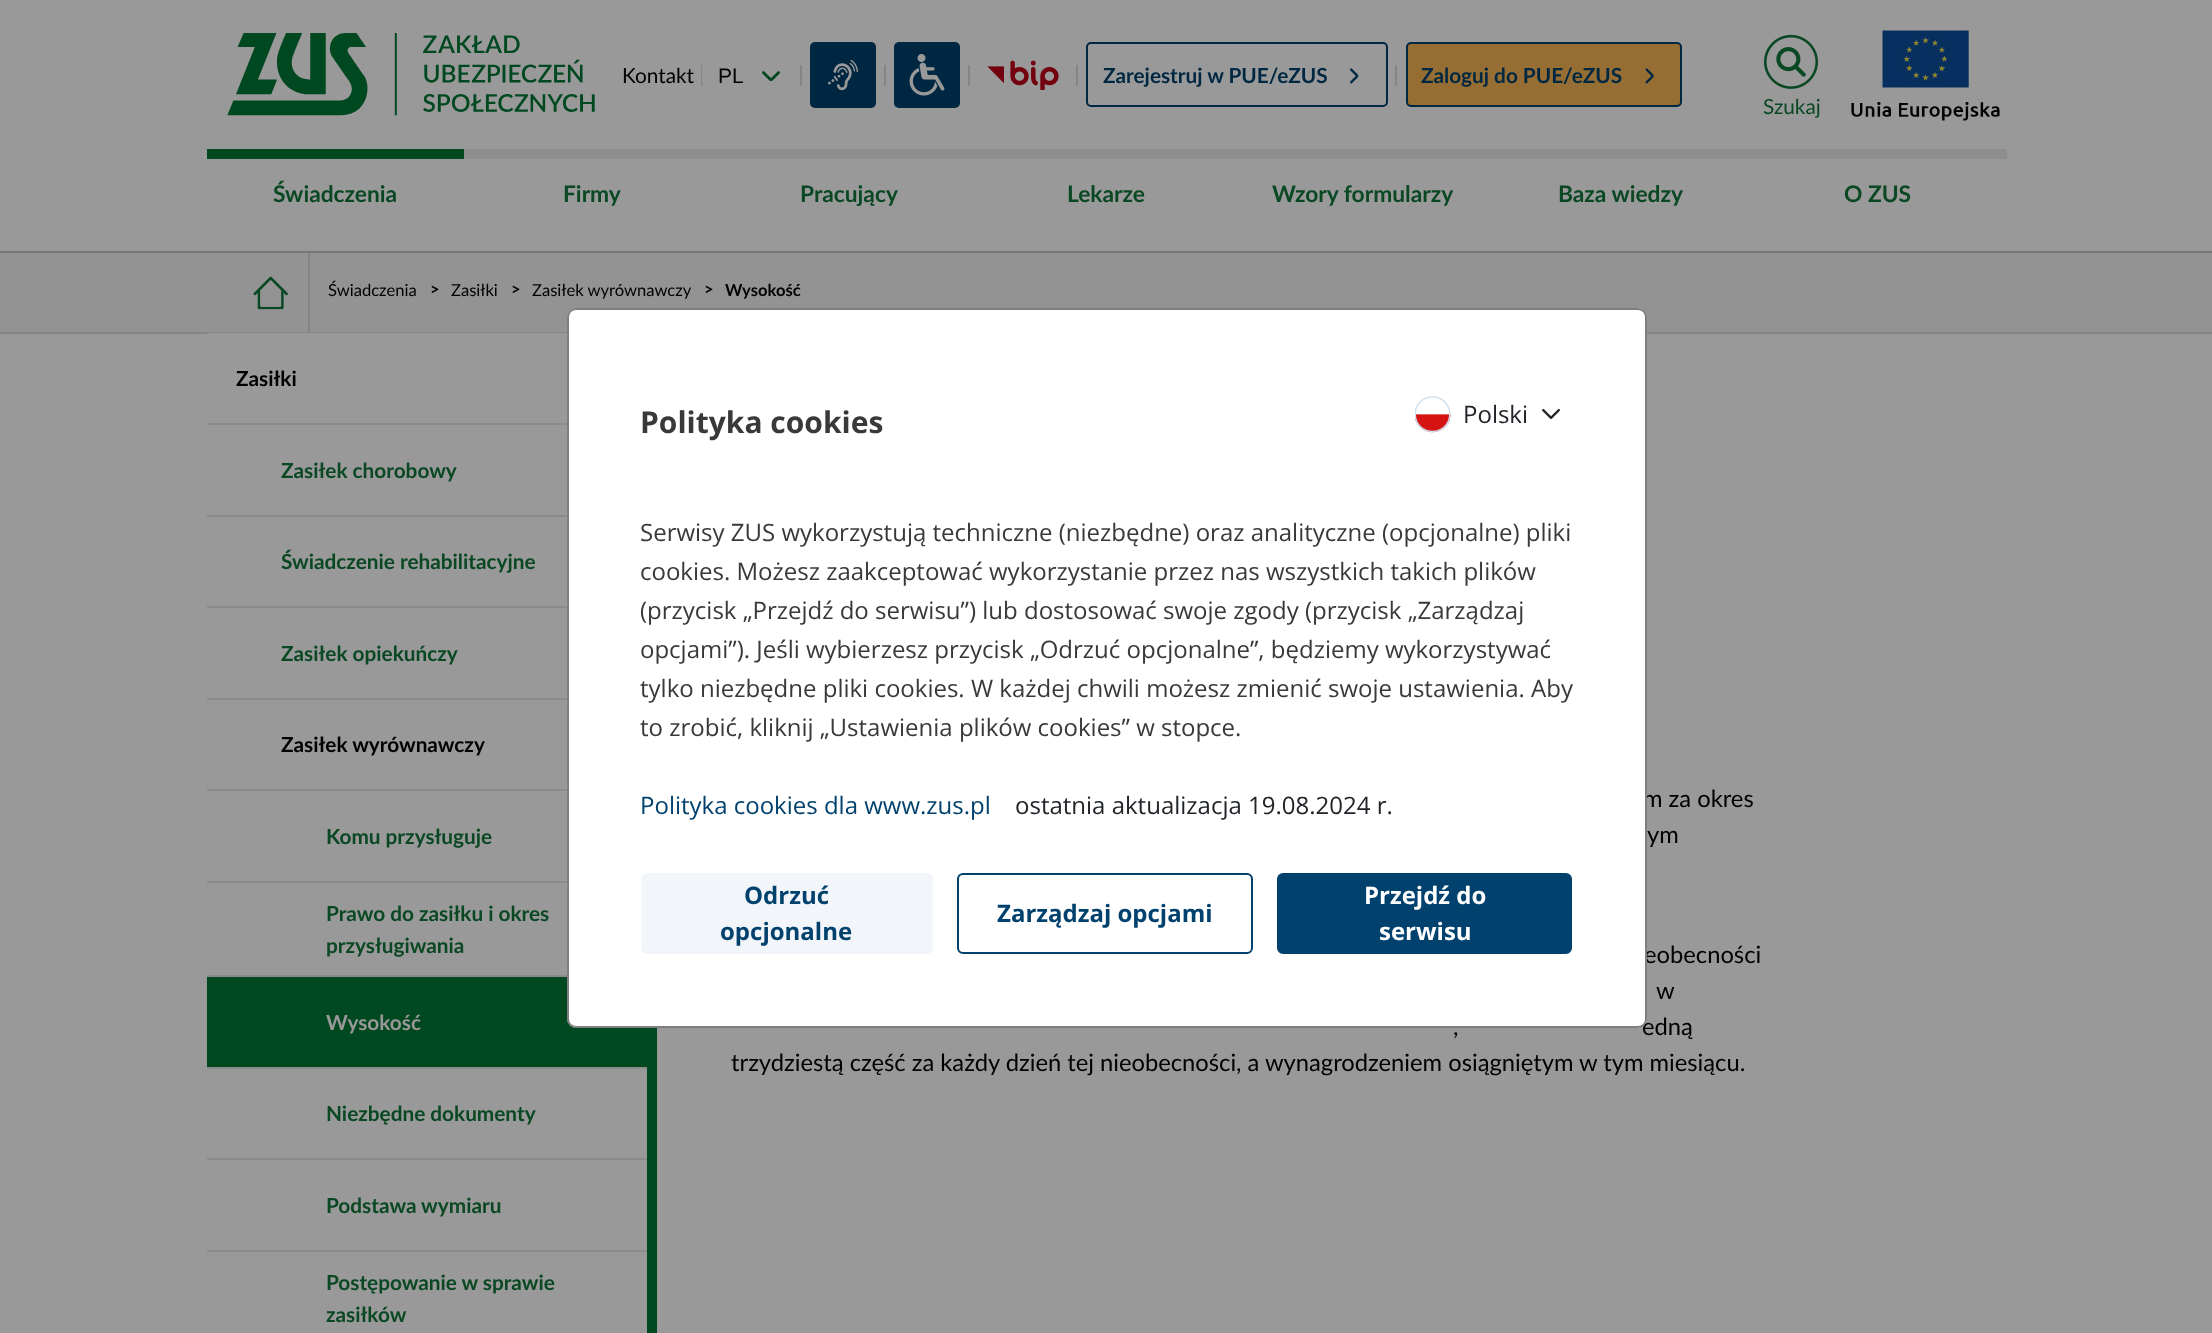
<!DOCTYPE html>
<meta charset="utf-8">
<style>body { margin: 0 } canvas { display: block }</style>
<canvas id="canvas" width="2212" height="1333"></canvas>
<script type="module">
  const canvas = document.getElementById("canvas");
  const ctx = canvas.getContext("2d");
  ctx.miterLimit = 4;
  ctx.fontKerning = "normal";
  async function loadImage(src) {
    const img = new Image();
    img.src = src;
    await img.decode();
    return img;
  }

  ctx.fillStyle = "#999999";
  ctx.fillRect(0, 0, 2212, 1333);
  ctx.drawImage(await loadImage("img1.png"), 227, 33, 368, 83);
  ctx.font = "21px Lato";
  ctx.fillStyle = "#000000";
  ctx.fillText("Kontakt", 622, 83);
  ctx.fillStyle = "#858585";
  ctx.fillRect(701, 65, 2, 21);
  ctx.fillStyle = "#999999";
  ctx.beginPath();
  ctx.roundRect(702, 62, 98, 25, 6);
  ctx.fill();
  ctx.font = "21px Liberation Sans";
  ctx.fillStyle = "#000000";
  ctx.fillText("PL", 718, 83);
  ctx.drawImage(await loadImage("img2.png"), 762, 71, 18, 11);
  ctx.fillStyle = "#858585";
  ctx.fillRect(800, 65, 2, 21);
  ctx.fillStyle = "#002742";
  ctx.beginPath();
  ctx.roundRect(810, 42, 66, 66, 5);
  ctx.fill();
  ctx.drawImage(await loadImage("img3.png"), 828, 59, 30, 32);
  ctx.fillStyle = "#858585";
  ctx.fillRect(884, 65, 2, 21);
  ctx.fillStyle = "#002742";
  ctx.beginPath();
  ctx.roundRect(894, 42, 66, 66, 5);
  ctx.fill();
  ctx.drawImage(await loadImage("img4.png"), 909, 54, 36, 42);
  ctx.fillStyle = "#858585";
  ctx.fillRect(968, 65, 2, 21);
  ctx.drawImage(await loadImage("img5.png"), 987, 60, 72, 30);
  ctx.fillRect(1076, 65, 2, 21);
  ctx.beginPath();
  ctx.roundRect(1087, 43, 300, 63, 4);
  ctx.strokeStyle = "#002742";
  ctx.lineWidth = 2;
  ctx.stroke();
  ctx.font = "bold 21px Lato";
  ctx.fillStyle = "#002742";
  ctx.fillText("Zarejestruj w PUE/eZUS", 1103, 83);
  ctx.drawImage(await loadImage("img6.png"), 1350, 68, 9, 16);
  ctx.fillStyle = "#858585";
  ctx.fillRect(1395, 65, 2, 21);
  ctx.fillStyle = "#966e34";
  ctx.beginPath();
  ctx.roundRect(1407, 43, 274, 63, 4);
  ctx.fill();
  ctx.stroke();
  ctx.fillStyle = "#002742";
  ctx.fillText("Zaloguj do PUE/eZUS", 1421, 83);
  ctx.drawImage(await loadImage("img7.png"), 1645, 68, 9, 16);
  ctx.drawImage(await loadImage("img8.png"), 1764, 34, 54, 55);
  ctx.font = "21px Lato";
  ctx.fillStyle = "#0a4823";
  ctx.fillText("Szukaj", 1763, 114);
  ctx.drawImage(await loadImage("img9.png"), 1851, 30, 149, 91);
  ctx.fillStyle = "#00481f";
  ctx.fillRect(207, 149, 257, 10);
  ctx.font = "bold 23px Lato";
  ctx.fillStyle = "#0a4823";
  ctx.fillText("Świadczenia", 273, 202);
  ctx.fillStyle = "#8e8e8e";
  ctx.fillRect(464, 149, 1543, 10);
  ctx.fillStyle = "#0a4823";
  ctx.fillText("Firmy", 563, 202);
  ctx.fillText("Pracujący", 800, 202);
  ctx.fillText("Lekarze", 1067, 202);
  ctx.fillText("Wzory formularzy", 1272, 202);
  ctx.fillText("Baza wiedzy", 1558, 202);
  ctx.fillText("O ZUS", 1844, 202);
  ctx.fillStyle = "#939393";
  ctx.fillRect(0, 253, 2212, 79);
  ctx.fillStyle = "#838383";
  ctx.fillRect(308, 251, 2, 81);
  ctx.fillStyle = "#777777";
  ctx.fillRect(0, 251, 2212, 2);
  ctx.fillStyle = "#838383";
  ctx.fillRect(0, 332, 2212, 2);
  ctx.drawImage(await loadImage("img10.png"), 253, 276, 35, 34);
  ctx.font = "16.75px Lato";
  ctx.fillStyle = "#000000";
  ctx.fillText("Świadczenia", 328, 296);
  ctx.font = "bold 16.75px Lato";
  ctx.fillText(">", 430, 295);
  ctx.font = "16.75px Lato";
  ctx.fillText("Zasiłki", 451, 296);
  ctx.font = "bold 16.75px Lato";
  ctx.fillText(">", 511, 295);
  ctx.font = "16.75px Lato";
  ctx.fillText("Zasiłek wyrównawczy", 532, 296);
  ctx.font = "bold 16.75px Lato";
  ctx.fillText(">", 704, 295);
  ctx.fillText("Wysokość", 725, 296);
  ctx.fillStyle = "#00481f";
  ctx.fillRect(647, 1028, 10, 305);
  ctx.fillStyle = "#999999";
  ctx.fillRect(207, 333, 440, 1);
  ctx.fillStyle = "#8b8b8b";
  ctx.fillRect(207, 423, 360, 2);
  ctx.font = "bold 21px Lato";
  ctx.fillStyle = "#000000";
  ctx.fillText("Zasiłki", 236, 386);
  ctx.fillStyle = "#8b8b8b";
  ctx.fillRect(207, 515, 360, 2);
  ctx.fillStyle = "#0a4823";
  ctx.fillText("Zasiłek chorobowy", 281, 478);
  ctx.fillStyle = "#8b8b8b";
  ctx.fillRect(207, 606, 360, 2);
  ctx.fillStyle = "#0a4823";
  ctx.fillText("Świadczenie rehabilitacyjne", 281, 569);
  ctx.fillStyle = "#8b8b8b";
  ctx.fillRect(207, 698, 360, 2);
  ctx.fillStyle = "#0a4823";
  ctx.fillText("Zasiłek opiekuńczy", 281, 661);
  ctx.fillStyle = "#8b8b8b";
  ctx.fillRect(207, 789, 360, 2);
  ctx.fillStyle = "#000000";
  ctx.fillText("Zasiłek wyrównawczy", 281, 752);
  ctx.fillStyle = "#8b8b8b";
  ctx.fillRect(207, 881, 360, 2);
  ctx.fillStyle = "#0a4823";
  ctx.fillText("Komu przysługuje", 326, 844);
  ctx.fillStyle = "#8b8b8b";
  ctx.fillRect(207, 975, 360, 2);
  ctx.fillStyle = "#0a4823";
  ctx.fillText("Prawo do zasiłku i okres", 326, 921);
  ctx.fillText("przysługiwania", 326, 953);
  ctx.fillStyle = "#00481f";
  ctx.fillRect(207, 977, 440, 90);
  ctx.fillStyle = "#8b8b8b";
  ctx.fillRect(207, 1067, 440, 2);
  ctx.fillStyle = "#999999";
  ctx.fillText("Wysokość", 326, 1030);
  ctx.fillStyle = "#8b8b8b";
  ctx.fillRect(207, 1158, 440, 2);
  ctx.fillStyle = "#0a4823";
  ctx.fillText("Niezbędne dokumenty", 326, 1121);
  ctx.fillStyle = "#8b8b8b";
  ctx.fillRect(207, 1250, 440, 2);
  ctx.fillStyle = "#0a4823";
  ctx.fillText("Podstawa wymiaru", 326, 1213);
  ctx.fillText("Postępowanie w sprawie", 326, 1290);
  ctx.fillText("zasiłków", 326, 1322);
  ctx.font = "24px Lato";
  ctx.fillStyle = "#000000";
  ctx.fillText("m za okres", 1643, 807);
  ctx.fillText("ym", 1647, 843);
  ctx.fillText("eobecności", 1644, 963);
  ctx.fillText("w", 1656, 999);
  ctx.fillText(",", 1453, 1035);
  ctx.fillText("edną", 1642, 1035);
  ctx.fillText("trzydziestą część za każdy dzień tej nieobecności, a wynagrodzeniem osiągniętym w tym miesiącu.", 731, 1071);
  ctx.fillStyle = "#ffffff";
  ctx.beginPath();
  ctx.roundRect(567, 308, 1080, 720, 9);
  ctx.fill();
  ctx.beginPath();
  ctx.roundRect(568, 309, 1078, 718, 8);
  ctx.strokeStyle = "rgba(0, 0, 0, 0.5)";
  ctx.stroke();
  ctx.font = "bold 30px Open Sans";
  ctx.fillStyle = "#393939";
  ctx.fillText("Polityka cookies", 640, 433);
  ctx.drawImage(await loadImage("img11.png"), 1415, 396, 36, 37);
  ctx.font = "24px Open Sans";
  ctx.fillStyle = "#212529";
  ctx.fillText("Polski", 1463, 423);
  ctx.drawImage(await loadImage("img12.png"), 1542, 409, 18, 10);
  ctx.fillStyle = "#393939";
  ctx.fillText("Serwisy ZUS wykorzystują techniczne (niezbędne) oraz analityczne (opcjonalne) pliki", 640, 541);
  ctx.fillText("cookies. Możesz zaakceptować wykorzystanie przez nas wszystkich takich plików", 640, 580);
  ctx.fillText("(przycisk „Przejdź do serwisu”) lub dostosować swoje zgody (przycisk „Zarządzaj", 640, 619);
  ctx.fillText("opcjami”). Jeśli wybierzesz przycisk „Odrzuć opcjonalne”, będziemy wykorzystywać", 640, 658);
  ctx.fillText("tylko niezbędne pliki cookies. W każdej chwili możesz zmienić swoje ustawienia. Aby", 640, 697);
  ctx.fillText("to zrobić, kliknij „Ustawienia plików cookies” w stopce.", 640, 736);
  ctx.fillStyle = "#00416e";
  ctx.fillText("Polityka cookies dla www.zus.pl", 640, 814);
  ctx.fillStyle = "#212529";
  ctx.fillText("ostatnia aktualizacja 19.08.2024 r.", 1015, 814);
  ctx.fillStyle = "#f2f6fa";
  ctx.beginPath();
  ctx.roundRect(641, 873, 292, 81, 6);
  ctx.fill();
  ctx.font = "bold 24px Open Sans";
  ctx.fillStyle = "#00416e";
  ctx.fillText("Odrzuć", 744, 904);
  ctx.fillText("opcjonalne", 720, 940);
  ctx.beginPath();
  ctx.roundRect(958, 874, 294, 79, 5);
  ctx.strokeStyle = "#00416e";
  ctx.stroke();
  ctx.fillText("Zarządzaj opcjami", 997, 922);
  ctx.beginPath();
  ctx.roundRect(1278, 874, 293, 79, 5);
  ctx.fill();
  ctx.stroke();
  ctx.fillStyle = "#ffffff";
  ctx.fillText("Przejdź do", 1364, 904);
  ctx.fillText("serwisu", 1379, 940);
</script>
